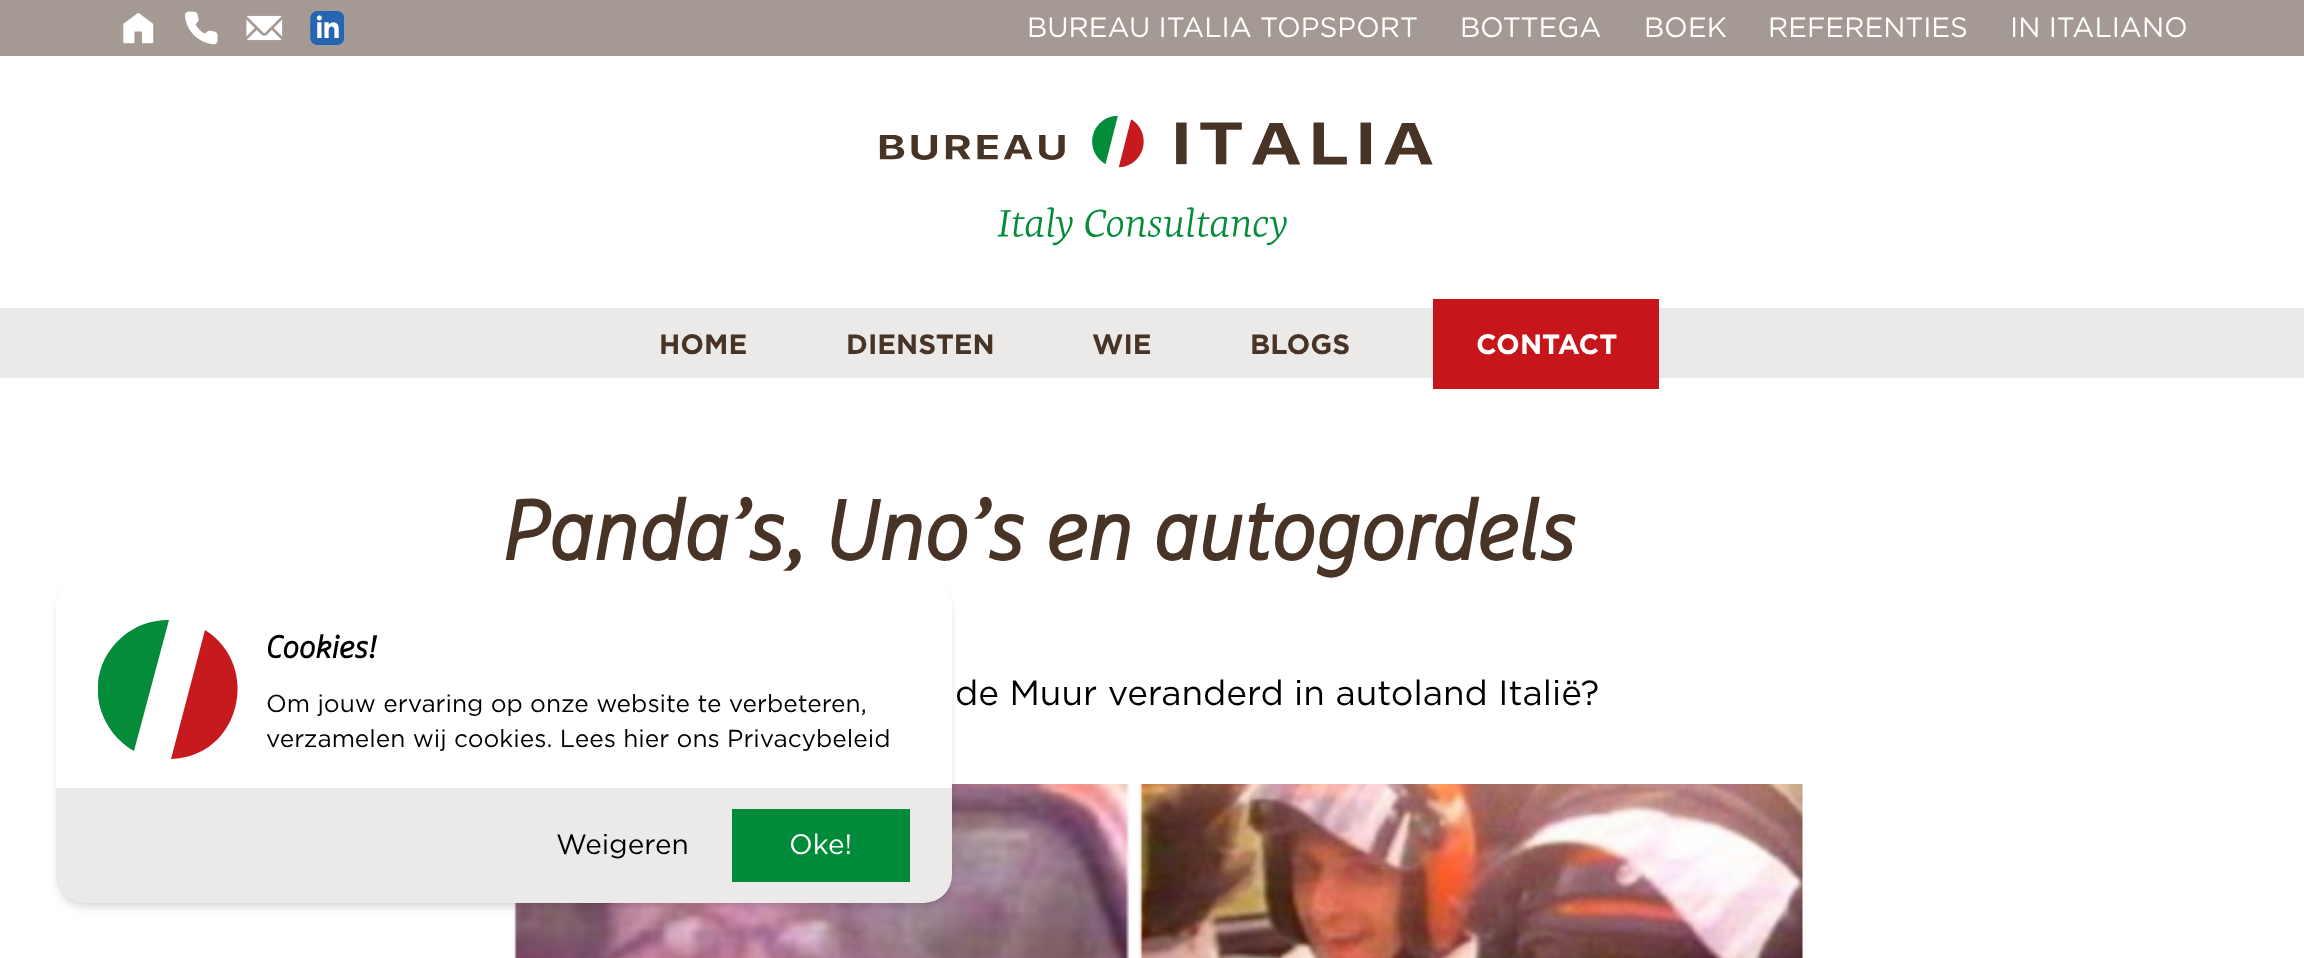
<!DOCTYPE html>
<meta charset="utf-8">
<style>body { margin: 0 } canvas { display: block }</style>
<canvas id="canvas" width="2304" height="958"></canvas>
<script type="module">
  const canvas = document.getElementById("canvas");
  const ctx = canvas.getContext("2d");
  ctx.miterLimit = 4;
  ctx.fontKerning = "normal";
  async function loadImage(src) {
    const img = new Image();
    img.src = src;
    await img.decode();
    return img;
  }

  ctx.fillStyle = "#ffffff";
  ctx.fillRect(0, 0, 2304, 958);
  ctx.fillStyle = "#a49a93";
  ctx.fillRect(0, 0, 2304, 56);
  ctx.drawImage(await loadImage("img1.png"), 123, 13, 31, 31);
  ctx.drawImage(await loadImage("img2.png"), 184, 11, 34, 34);
  ctx.drawImage(await loadImage("img3.png"), 246, 15, 37, 26);
  ctx.drawImage(await loadImage("img4.png"), 310, 10, 35, 36);
  ctx.font = "28px Gotham";
  ctx.fillStyle = "#ffffff";
  ctx.fillText("BUREAU ITALIA TOPSPORT", 1027, 37);
  ctx.fillText("BOTTEGA", 1460, 37);
  ctx.fillText("BOEK", 1644, 37);
  ctx.fillText("REFERENTIES", 1768, 37);
  ctx.fillText("IN ITALIANO", 2010, 37);
  ctx.drawImage(await loadImage("img5.png"), 879, 115, 554, 131);
  ctx.fillStyle = "#eceae9";
  ctx.fillRect(0, 308, 2304, 70);
  ctx.font = "bold 28px Gotham";
  ctx.fillStyle = "#483427";
  ctx.fillText("HOME", 659, 354);
  ctx.fillText("DIENSTEN", 846, 354);
  ctx.fillText("WIE", 1092, 354);
  ctx.fillText("BLOGS", 1250, 354);
  ctx.strokeStyle = "#c6161c";
  ctx.lineWidth = 14;
  ctx.strokeRect(1440, 306, 212, 76);
  ctx.fillStyle = "#c6161c";
  ctx.fillRect(1447, 313, 198, 62);
  ctx.fillStyle = "#ffffff";
  ctx.fillText("CONTACT", 1476, 354);
  ctx.font = "italic bold 84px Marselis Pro";
  ctx.fillStyle = "#483427";
  ctx.fillText("Panda’s, Uno’s en autogordels", 502, 560);
  ctx.font = "35px Gotham";
  ctx.fillStyle = "#000000";
  ctx.fillText("de Muur veranderd in autoland Italië?", 955, 705);
  ctx.drawImage(await loadImage("img6.png"), 514, 784, 1289, 174);
  ctx.fillStyle = "rgba(0, 0, 0, 0.1)";
  ctx.filter = "blur(3.5px)";
  ctx.beginPath();
  ctx.roundRect(60, 585, 889, 318, 25);
  ctx.fill();
  ctx.filter = "none";
  ctx.filter = "blur(5px)";
  ctx.beginPath();
  ctx.roundRect(58, 586, 892, 322, 26);
  ctx.fill();
  ctx.filter = "none";
  ctx.fillStyle = "#ffffff";
  ctx.beginPath();
  ctx.roundRect(56, 578, 896, 210, [28, 28, 0, 0]);
  ctx.fill();
  ctx.fillStyle = "#c61a1e";
  ctx.beginPath();
  ctx.moveTo(205, 630);
  ctx.bezierCurveTo(262, 666, 240, 757, 171, 759);
  ctx.closePath();
  ctx.fill();
  ctx.save();
  ctx.beginPath();
  ctx.rect(98, 620, 140, 140);
  ctx.clip();
  ctx.fillStyle = "#058c3b";
  ctx.beginPath();
  ctx.moveTo(168, 620);
  ctx.lineTo(169, 620);
  ctx.lineTo(134, 751);
  ctx.bezierCurveTo(93, 727, 84, 671, 121, 638);
  ctx.bezierCurveTo(134, 626, 151, 620, 168, 620);
  ctx.closePath();
  ctx.fill();
  ctx.restore();
  ctx.font = "italic bold 31.5px Marselis Pro";
  ctx.fillStyle = "#000000";
  ctx.fillText("Cookies!", 266, 658);
  ctx.font = "24.5px Gotham";
  ctx.fillText("Om jouw ervaring op onze website te verbeteren,", 266, 712);
  ctx.fillText("verzamelen wij cookies. Lees hier ons Privacybeleid", 266, 747);
  ctx.fillStyle = "#eceae9";
  ctx.beginPath();
  ctx.roundRect(56, 788, 896, 115, [0, 0, 28, 28]);
  ctx.fill();
  ctx.font = "28px Gotham";
  ctx.fillStyle = "#000000";
  ctx.fillText("Weigeren", 556, 854);
  ctx.fillStyle = "#008b3b";
  ctx.fillRect(732, 809, 178, 73);
  ctx.fillStyle = "#ffffff";
  ctx.fillText("Oke!", 789, 854);
</script>
